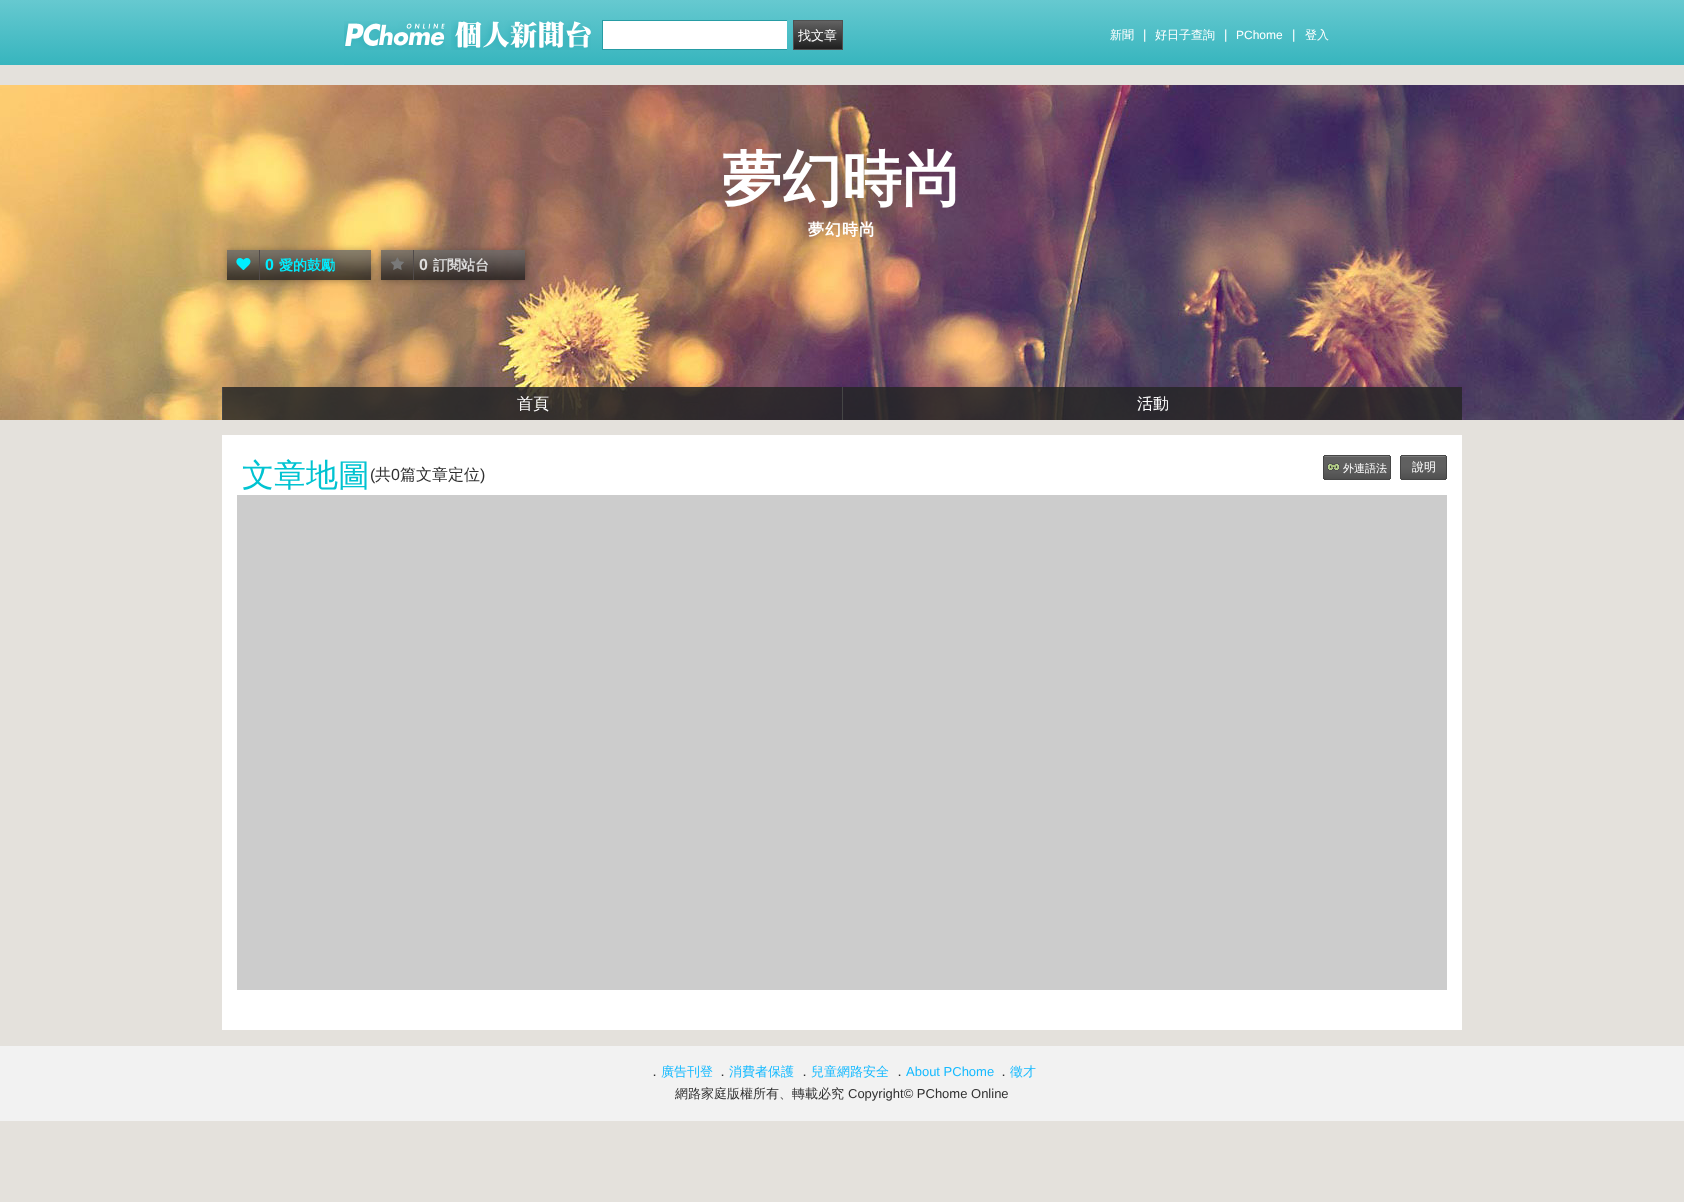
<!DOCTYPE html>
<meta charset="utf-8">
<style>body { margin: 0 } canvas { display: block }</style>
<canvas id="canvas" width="1684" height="1202"></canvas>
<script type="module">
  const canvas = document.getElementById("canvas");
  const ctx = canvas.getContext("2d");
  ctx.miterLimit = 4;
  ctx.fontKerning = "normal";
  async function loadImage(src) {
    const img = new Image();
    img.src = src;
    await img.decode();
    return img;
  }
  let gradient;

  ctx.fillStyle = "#e4e1dc";
  ctx.fillRect(0, 0, 1684, 1202);
  gradient = ctx.createLinearGradient(842, 0, 842, 65);
  gradient.addColorStop(0, "#66c9d0");
  gradient.addColorStop(1, "#37b5be");
  ctx.fillStyle = gradient;
  ctx.fillRect(0, 0, 1684, 65);
  ctx.fillStyle = "#33b4bd";
  ctx.fillRect(344, 64, 997, 1);
  ctx.drawImage(await loadImage("img1.png"), 344, 21, 101, 29);
  ctx.drawImage(await loadImage("img2.png"), 451, 20, 140, 30);
  ctx.fillStyle = "#ffffff";
  ctx.fillRect(603, 21, 184, 28);
  ctx.fillStyle = "#269ca4";
  ctx.fillRect(602, 20, 185, 1);
  ctx.fillRect(602, 49, 185, 1);
  ctx.fillRect(602, 20, 1, 30);
  gradient = ctx.createLinearGradient(818, 21, 818, 49);
  gradient.addColorStop(0, "#626262");
  gradient.addColorStop(1, "#1f1f1f");
  ctx.fillStyle = gradient;
  ctx.fillRect(794, 21, 48, 28);
  ctx.strokeStyle = "#505050";
  ctx.strokeRect(793.5, 20.5, 49, 29);
  ctx.font = "500 13px WenQuanYi Zen Hei";
  ctx.fillStyle = "#ffffff";
  ctx.fillText("找文章", 798, 40);
  ctx.font = "500 12px WenQuanYi Zen Hei";
  ctx.fillText("新聞", 1110, 39);
  ctx.font = "13px Liberation Sans";
  ctx.fillText("|", 1143, 39);
  ctx.font = "500 12px WenQuanYi Zen Hei";
  ctx.fillText("好日子查詢", 1155, 39);
  ctx.font = "13px Liberation Sans";
  ctx.fillText("|", 1224, 39);
  ctx.font = "12px Liberation Sans";
  ctx.fillText("PChome", 1236, 39);
  ctx.font = "13px Liberation Sans";
  ctx.fillText("|", 1292, 39);
  ctx.font = "500 12px WenQuanYi Zen Hei";
  ctx.fillText("登入", 1305, 39);
  ctx.drawImage(await loadImage("img3.png"), 0, 85, 1684, 335);
  ctx.font = "bold 60px WenQuanYi Zen Hei";
  ctx.fillText("夢幻時尚", 722, 200);
  ctx.letterSpacing = "1px";
  ctx.font = "bold 16px WenQuanYi Zen Hei";
  ctx.fillText("夢幻時尚", 808, 235);
  ctx.save();
  ctx.beginPath();
  ctx.moveTo(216, 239);
  ctx.lineTo(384, 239);
  ctx.lineTo(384, 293);
  ctx.lineTo(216, 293);
  ctx.closePath();
  ctx.moveTo(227, 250);
  ctx.lineTo(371, 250);
  ctx.lineTo(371, 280);
  ctx.lineTo(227, 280);
  ctx.closePath();
  ctx.clip("evenodd");
  ctx.fillStyle = "rgba(0, 0, 0, 0.3)";
  ctx.filter = "blur(3.5px)";
  ctx.beginPath();
  ctx.rect(228, 251, 144, 30);
  ctx.fill();
  ctx.filter = "none";
  ctx.restore();
  ctx.drawImage(await loadImage("img4.png"), 227, 250, 144, 30);
  ctx.fillStyle = "#514b4a";
  ctx.fillRect(259, 250, 1, 30);
  ctx.letterSpacing = "0px";
  ctx.font = "16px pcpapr";
  ctx.fillStyle = "#00eeff";
  ctx.fillText("#", 236, 270);
  ctx.font = "bold 16px Liberation Sans";
  ctx.fillText("0", 265, 270);
  ctx.font = "bold 14px WenQuanYi Zen Hei";
  ctx.fillText("愛的鼓勵", 279, 270);
  ctx.save();
  ctx.beginPath();
  ctx.moveTo(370, 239);
  ctx.lineTo(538, 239);
  ctx.lineTo(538, 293);
  ctx.lineTo(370, 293);
  ctx.closePath();
  ctx.moveTo(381, 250);
  ctx.lineTo(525, 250);
  ctx.lineTo(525, 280);
  ctx.lineTo(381, 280);
  ctx.closePath();
  ctx.clip("evenodd");
  ctx.fillStyle = "rgba(0, 0, 0, 0.3)";
  ctx.filter = "blur(3.5px)";
  ctx.beginPath();
  ctx.rect(382, 251, 144, 30);
  ctx.fill();
  ctx.filter = "none";
  ctx.restore();
  ctx.drawImage(await loadImage("img5.png"), 381, 250, 144, 30);
  ctx.fillStyle = "#514b4a";
  ctx.fillRect(413, 250, 1, 30);
  ctx.font = "16px pcpapr";
  ctx.fillStyle = "#797979";
  ctx.fillText("$", 390, 270);
  ctx.font = "bold 16px Liberation Sans";
  ctx.fillStyle = "#dddddd";
  ctx.fillText("0", 419, 270);
  ctx.font = "bold 14px WenQuanYi Zen Hei";
  ctx.fillText("訂閱站台", 433, 270);
  ctx.fillStyle = "rgba(38, 38, 38, 0.85)";
  ctx.fillRect(223, 387, 1239, 33);
  ctx.fillStyle = "#454545";
  ctx.fillRect(222, 387, 1, 33);
  ctx.font = "500 16px WenQuanYi Zen Hei";
  ctx.fillStyle = "#ffffff";
  ctx.fillText("首頁", 517, 409);
  ctx.fillStyle = "#454545";
  ctx.fillRect(842, 387, 1, 33);
  ctx.fillStyle = "#ffffff";
  ctx.fillText("活動", 1137, 409);
  ctx.fillRect(222, 435, 1240, 595);
  ctx.font = "500 32px WenQuanYi Zen Hei";
  ctx.fillStyle = "#01c3d1";
  ctx.fillText("文章地圖", 242, 486);
  ctx.font = "16px Liberation Sans";
  ctx.fillStyle = "#303030";
  ctx.fillText("(", 370, 480);
  ctx.font = "500 16px WenQuanYi Zen Hei";
  ctx.fillText("共", 375, 480);
  ctx.font = "16px Liberation Sans";
  ctx.fillText("0", 391, 480);
  ctx.font = "500 16px WenQuanYi Zen Hei";
  ctx.fillText("篇文章定位", 400, 480);
  ctx.font = "16px Liberation Sans";
  ctx.fillText(")", 480, 480);
  ctx.drawImage(await loadImage("img6.png"), 1323, 455, 68, 25);
  ctx.font = "500 11px WenQuanYi Zen Hei";
  ctx.fillStyle = "#ffffff";
  ctx.fillText("外連語法", 1343, 472);
  ctx.drawImage(await loadImage("img7.png"), 1400, 455, 47, 25);
  ctx.font = "500 12px WenQuanYi Zen Hei";
  ctx.fillText("說明", 1412, 471);
  ctx.fillStyle = "#cccccc";
  ctx.fillRect(237, 495, 1210, 495);
  ctx.fillStyle = "#f2f2f2";
  ctx.fillRect(0, 1046, 1684, 75);
  ctx.font = "500 13px WenQuanYi Zen Hei";
  ctx.fillStyle = "#303030";
  ctx.fillText("．", 648, 1076);
  ctx.fillStyle = "#15baff";
  ctx.fillText("廣告刊登", 661, 1076);
  ctx.fillStyle = "#303030";
  ctx.fillText("．", 716, 1076);
  ctx.fillStyle = "#15baff";
  ctx.fillText("消費者保護", 729, 1076);
  ctx.fillStyle = "#303030";
  ctx.fillText("．", 798, 1076);
  ctx.fillStyle = "#15baff";
  ctx.fillText("兒童網路安全", 811, 1076);
  ctx.fillStyle = "#303030";
  ctx.fillText("．", 893, 1076);
  ctx.font = "13px Liberation Sans";
  ctx.fillStyle = "#15baff";
  ctx.fillText("About PChome", 906, 1076);
  ctx.font = "500 13px WenQuanYi Zen Hei";
  ctx.fillStyle = "#303030";
  ctx.fillText("．", 997, 1076);
  ctx.fillStyle = "#15baff";
  ctx.fillText("徵才", 1010, 1076);
  ctx.fillStyle = "#303030";
  ctx.fillText("網路家庭版權所有、轉載必究", 675, 1098);
  ctx.font = "13px Liberation Sans";
  ctx.fillText("Copyright© PChome Online", 848, 1098);
</script>
